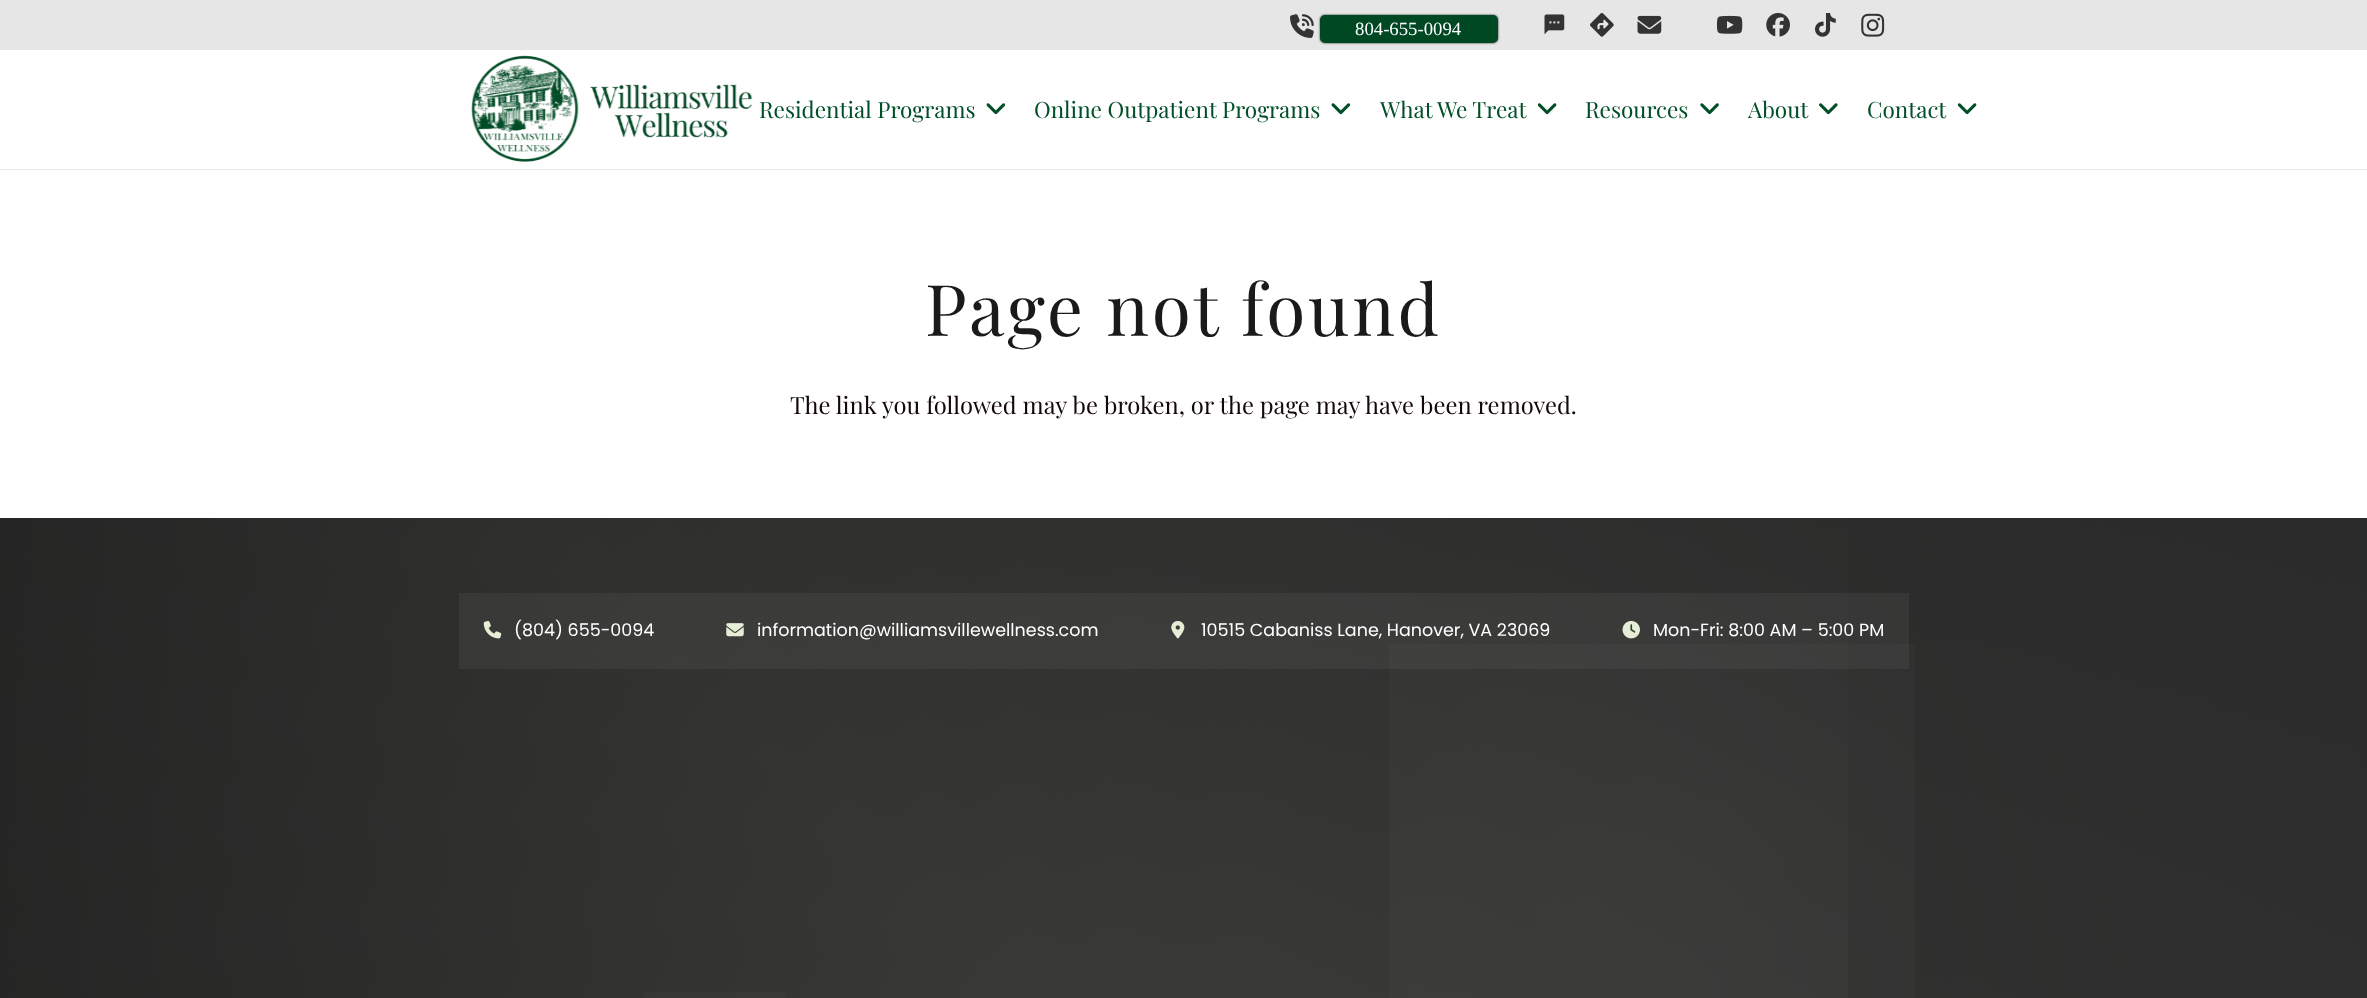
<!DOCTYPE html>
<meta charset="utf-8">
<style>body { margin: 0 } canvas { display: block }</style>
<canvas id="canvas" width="2367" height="998"></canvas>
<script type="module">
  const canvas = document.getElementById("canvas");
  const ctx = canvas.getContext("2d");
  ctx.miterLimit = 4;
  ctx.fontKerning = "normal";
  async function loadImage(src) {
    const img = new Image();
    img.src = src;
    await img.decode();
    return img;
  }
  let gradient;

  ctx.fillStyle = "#ffffff";
  ctx.fillRect(0, 0, 2367, 998);
  ctx.fillStyle = "#e6e6e6";
  ctx.fillRect(0, 0, 2367, 50);
  ctx.drawImage(await loadImage("img1.png"), 1290, 14, 24, 24);
  ctx.fillStyle = "#333333";
  ctx.filter = "blur(1px)";
  ctx.beginPath();
  ctx.roundRect(1320, 15, 178, 28, 5);
  ctx.fill();
  ctx.filter = "none";
  ctx.fillStyle = "#004824";
  ctx.beginPath();
  ctx.roundRect(1322.5, 17.5, 173, 23, 2.5);
  ctx.fill();
  ctx.strokeStyle = "#004824";
  ctx.lineWidth = 5;
  ctx.stroke();
  ctx.font = "18.75px Liberation Serif";
  ctx.fillStyle = "#ffffff";
  ctx.fillText("804-655-0094", 1355, 35);
  ctx.drawImage(await loadImage("img2.png"), 1544, 14, 21, 21);
  ctx.drawImage(await loadImage("img3.png"), 1590, 13, 24, 24);
  ctx.drawImage(await loadImage("img4.png"), 1637, 15, 25, 19);
  ctx.drawImage(await loadImage("img5.png"), 1716, 15, 27, 19);
  ctx.drawImage(await loadImage("img6.png"), 1766, 13, 24, 24);
  ctx.drawImage(await loadImage("img7.png"), 1815, 13, 21, 24);
  ctx.drawImage(await loadImage("img8.png"), 1861, 13, 24, 24);
  ctx.fillStyle = "#ebebeb";
  ctx.beginPath();
  ctx.moveTo(0, 169);
  ctx.lineTo(0, 170);
  ctx.lineTo(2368, 170);
  ctx.lineTo(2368, 51);
  ctx.lineTo(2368, 169);
  ctx.closePath();
  ctx.fill();
  ctx.drawImage(await loadImage("img9.png"), 471, 55, 108, 107);
  ctx.drawImage(await loadImage("img10.png"), 590, 84, 163, 54);
  ctx.font = "22.5px Playfair Display";
  ctx.fillStyle = "#004f27";
  ctx.fillText("Residential Programs", 759, 118);
  ctx.drawImage(await loadImage("img11.png"), 986, 103, 20, 12);
  ctx.fillText("Online Outpatient Programs", 1034, 118);
  ctx.drawImage(await loadImage("img11.png"), 1331, 103, 20, 12);
  ctx.fillText("What We Treat", 1380, 118);
  ctx.drawImage(await loadImage("img12.png"), 1537, 103, 20, 12);
  ctx.fillText("Resources", 1585, 118);
  ctx.drawImage(await loadImage("img13.png"), 1700, 103, 19, 12);
  ctx.fillText("About", 1748, 118);
  ctx.drawImage(await loadImage("img14.png"), 1819, 103, 19, 12);
  ctx.fillText("Contact", 1867, 118);
  ctx.drawImage(await loadImage("img12.png"), 1957, 103, 20, 12);
  ctx.letterSpacing = "2.8px";
  ctx.font = "71.25px Playfair Display";
  ctx.fillStyle = "#1a1a1a";
  ctx.fillText("Page not found", 925, 336);
  ctx.letterSpacing = "0px";
  ctx.font = "23.75px Playfair Display";
  ctx.fillStyle = "#14080e";
  ctx.fillText("The link you followed may be broken, or the page may have been removed.", 790, 414);
  gradient = ctx.createLinearGradient(266, 252, 2102, 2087);
  gradient.addColorStop(0, "#1a1a1a");
  gradient.addColorStop(1, "#2d2d2d");
  ctx.fillStyle = gradient;
  ctx.fillRect(0, 518, 2367, 480);
  gradient = ctx.createLinearGradient(-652, 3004, 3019, -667);
  gradient.addColorStop(0.3, "rgba(230, 238, 214, 0)");
  gradient.addColorStop(0.5, "rgba(230, 238, 214, 0.05)");
  gradient.addColorStop(0.7, "rgba(230, 238, 214, 0)");
  ctx.fillStyle = gradient;
  ctx.fillRect(0, 518, 1848, 480);
  gradient = ctx.createRadialGradient(1184, 1169, 0, 1184, 1169, 2703);
  gradient.addColorStop(0, "rgba(230, 238, 214, 0.08)");
  gradient.addColorStop(0.7, "rgba(230, 238, 214, 0)");
  ctx.fillStyle = gradient;
  ctx.fillRect(0, 518, 2367, 480);
  gradient = ctx.createRadialGradient(1657, 909, 0, 1657, 909, 1892);
  gradient.addColorStop(0, "rgba(255, 255, 255, 0.03)");
  gradient.addColorStop(0.5, "rgba(255, 255, 255, 0)");
  ctx.fillStyle = gradient;
  ctx.fillRect(1389, 644, 526, 354);
  ctx.fillStyle = "rgba(255, 255, 255, 0.05)";
  ctx.fillRect(459, 593, 1450, 76);
  ctx.drawImage(await loadImage("img15.png"), 483, 620, 19, 19);
  ctx.font = "17.5px Poppins";
  ctx.fillStyle = "#ffffff";
  ctx.fillText("(804) 655-0094", 514, 636);
  ctx.drawImage(await loadImage("img16.png"), 726, 623, 18, 14);
  ctx.fillText("information@williamsvillewellness.com", 757, 636);
  ctx.drawImage(await loadImage("img17.png"), 1171, 620, 14, 19);
  ctx.fillText("10515 Cabaniss Lane, Hanover, VA 23069", 1201, 636);
  ctx.drawImage(await loadImage("img18.png"), 1622, 620, 18, 19);
  ctx.fillText("Mon-Fri: 8:00 AM – 5:00 PM", 1653, 636);
  gradient = ctx.createRadialGradient(710, 1430, 0, 710, 1430, 1892);
  gradient.addColorStop(0, "rgba(230, 238, 214, 0.04)");
  gradient.addColorStop(0.5, "rgba(230, 238, 214, 0)");
  ctx.fillStyle = gradient;
  ctx.fillRect(644, 992, 141, 6);
</script>
